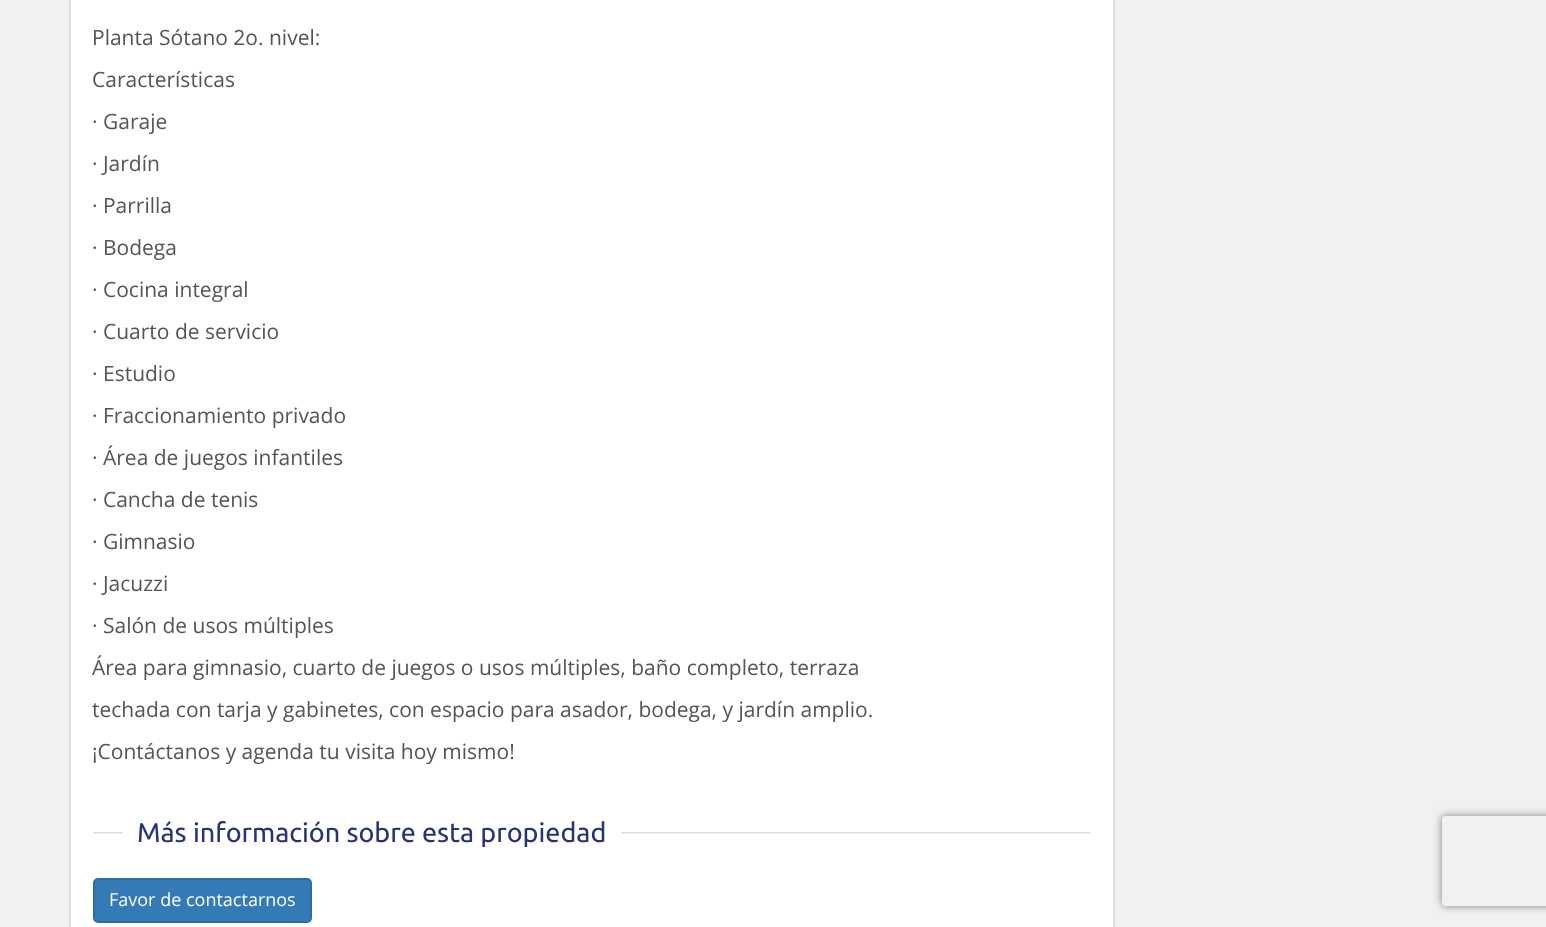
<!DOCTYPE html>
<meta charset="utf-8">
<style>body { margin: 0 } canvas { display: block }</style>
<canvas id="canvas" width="1546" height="927"></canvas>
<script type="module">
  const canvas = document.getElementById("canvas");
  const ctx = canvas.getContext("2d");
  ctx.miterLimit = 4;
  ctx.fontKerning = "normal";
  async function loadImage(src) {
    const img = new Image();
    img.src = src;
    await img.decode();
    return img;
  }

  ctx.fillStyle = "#f1f1f1";
  ctx.fillRect(0, 0, 1546, 927);
  ctx.fillStyle = "#ffffff";
  ctx.beginPath();
  ctx.rect(70, -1, 1044, 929);
  ctx.fill();
  ctx.strokeStyle = "#dedede";
  ctx.lineWidth = 2;
  ctx.stroke();
  ctx.font = "21px Open Sans";
  ctx.fillStyle = "#555555";
  ctx.fillText("Planta Sótano 2o. nivel:", 92, 45);
  ctx.fillText("Características", 92, 87);
  ctx.fillText("· Garaje", 92, 129);
  ctx.fillText("· Jardín", 92, 171);
  ctx.fillText("· Parrilla", 92, 213);
  ctx.fillText("· Bodega", 92, 255);
  ctx.fillText("· Cocina integral", 92, 297);
  ctx.fillText("· Cuarto de servicio", 92, 339);
  ctx.fillText("· Estudio", 92, 381);
  ctx.fillText("· Fraccionamiento privado", 92, 423);
  ctx.fillText("· Área de juegos infantiles", 92, 465);
  ctx.fillText("· Cancha de tenis", 92, 507);
  ctx.fillText("· Gimnasio", 92, 549);
  ctx.fillText("· Jacuzzi", 92, 591);
  ctx.fillText("· Salón de usos múltiples", 92, 633);
  ctx.fillText("Área para gimnasio, cuarto de juegos o usos múltiples, baño completo, terraza", 92, 675);
  ctx.fillText("techada con tarja y gabinetes, con espacio para asador, bodega, y jardín amplio.", 92, 717);
  ctx.fillText("¡Contáctanos y agenda tu visita hoy mismo!", 92, 759);
  ctx.drawImage(await loadImage("img1.png"), 93, 832, 998, 2);
  ctx.fillStyle = "#ffffff";
  ctx.fillRect(123, 832, 498, 2);
  ctx.font = "27px Ubuntu";
  ctx.fillStyle = "#293276";
  ctx.fillText("Más información sobre esta propiedad", 137, 842);
  ctx.fillStyle = "#337ab7";
  ctx.beginPath();
  ctx.roundRect(94, 879, 217, 43, 4);
  ctx.fill();
  ctx.strokeStyle = "#2e6da4";
  ctx.stroke();
  ctx.font = "18px Open Sans";
  ctx.fillStyle = "#ffffff";
  ctx.fillText("Favor de contactarnos", 109, 906);
  ctx.save();
  ctx.beginPath();
  ctx.moveTo(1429, 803);
  ctx.lineTo(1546, 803);
  ctx.lineTo(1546, 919);
  ctx.lineTo(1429, 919);
  ctx.closePath();
  ctx.moveTo(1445, 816);
  ctx.lineTo(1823, 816);
  ctx.bezierCurveTo(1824.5, 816, 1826, 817.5, 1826, 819);
  ctx.lineTo(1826, 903);
  ctx.bezierCurveTo(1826, 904.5, 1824.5, 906, 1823, 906);
  ctx.lineTo(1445, 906);
  ctx.bezierCurveTo(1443.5, 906, 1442, 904.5, 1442, 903);
  ctx.lineTo(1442, 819);
  ctx.bezierCurveTo(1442, 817.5, 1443.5, 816, 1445, 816);
  ctx.closePath();
  ctx.clip("evenodd");
  ctx.fillStyle = "#808080";
  ctx.filter = "blur(4px)";
  ctx.beginPath();
  ctx.roundRect(1442, 816, 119, 90, 3);
  ctx.fill();
  ctx.filter = "none";
  ctx.restore();
</script>
